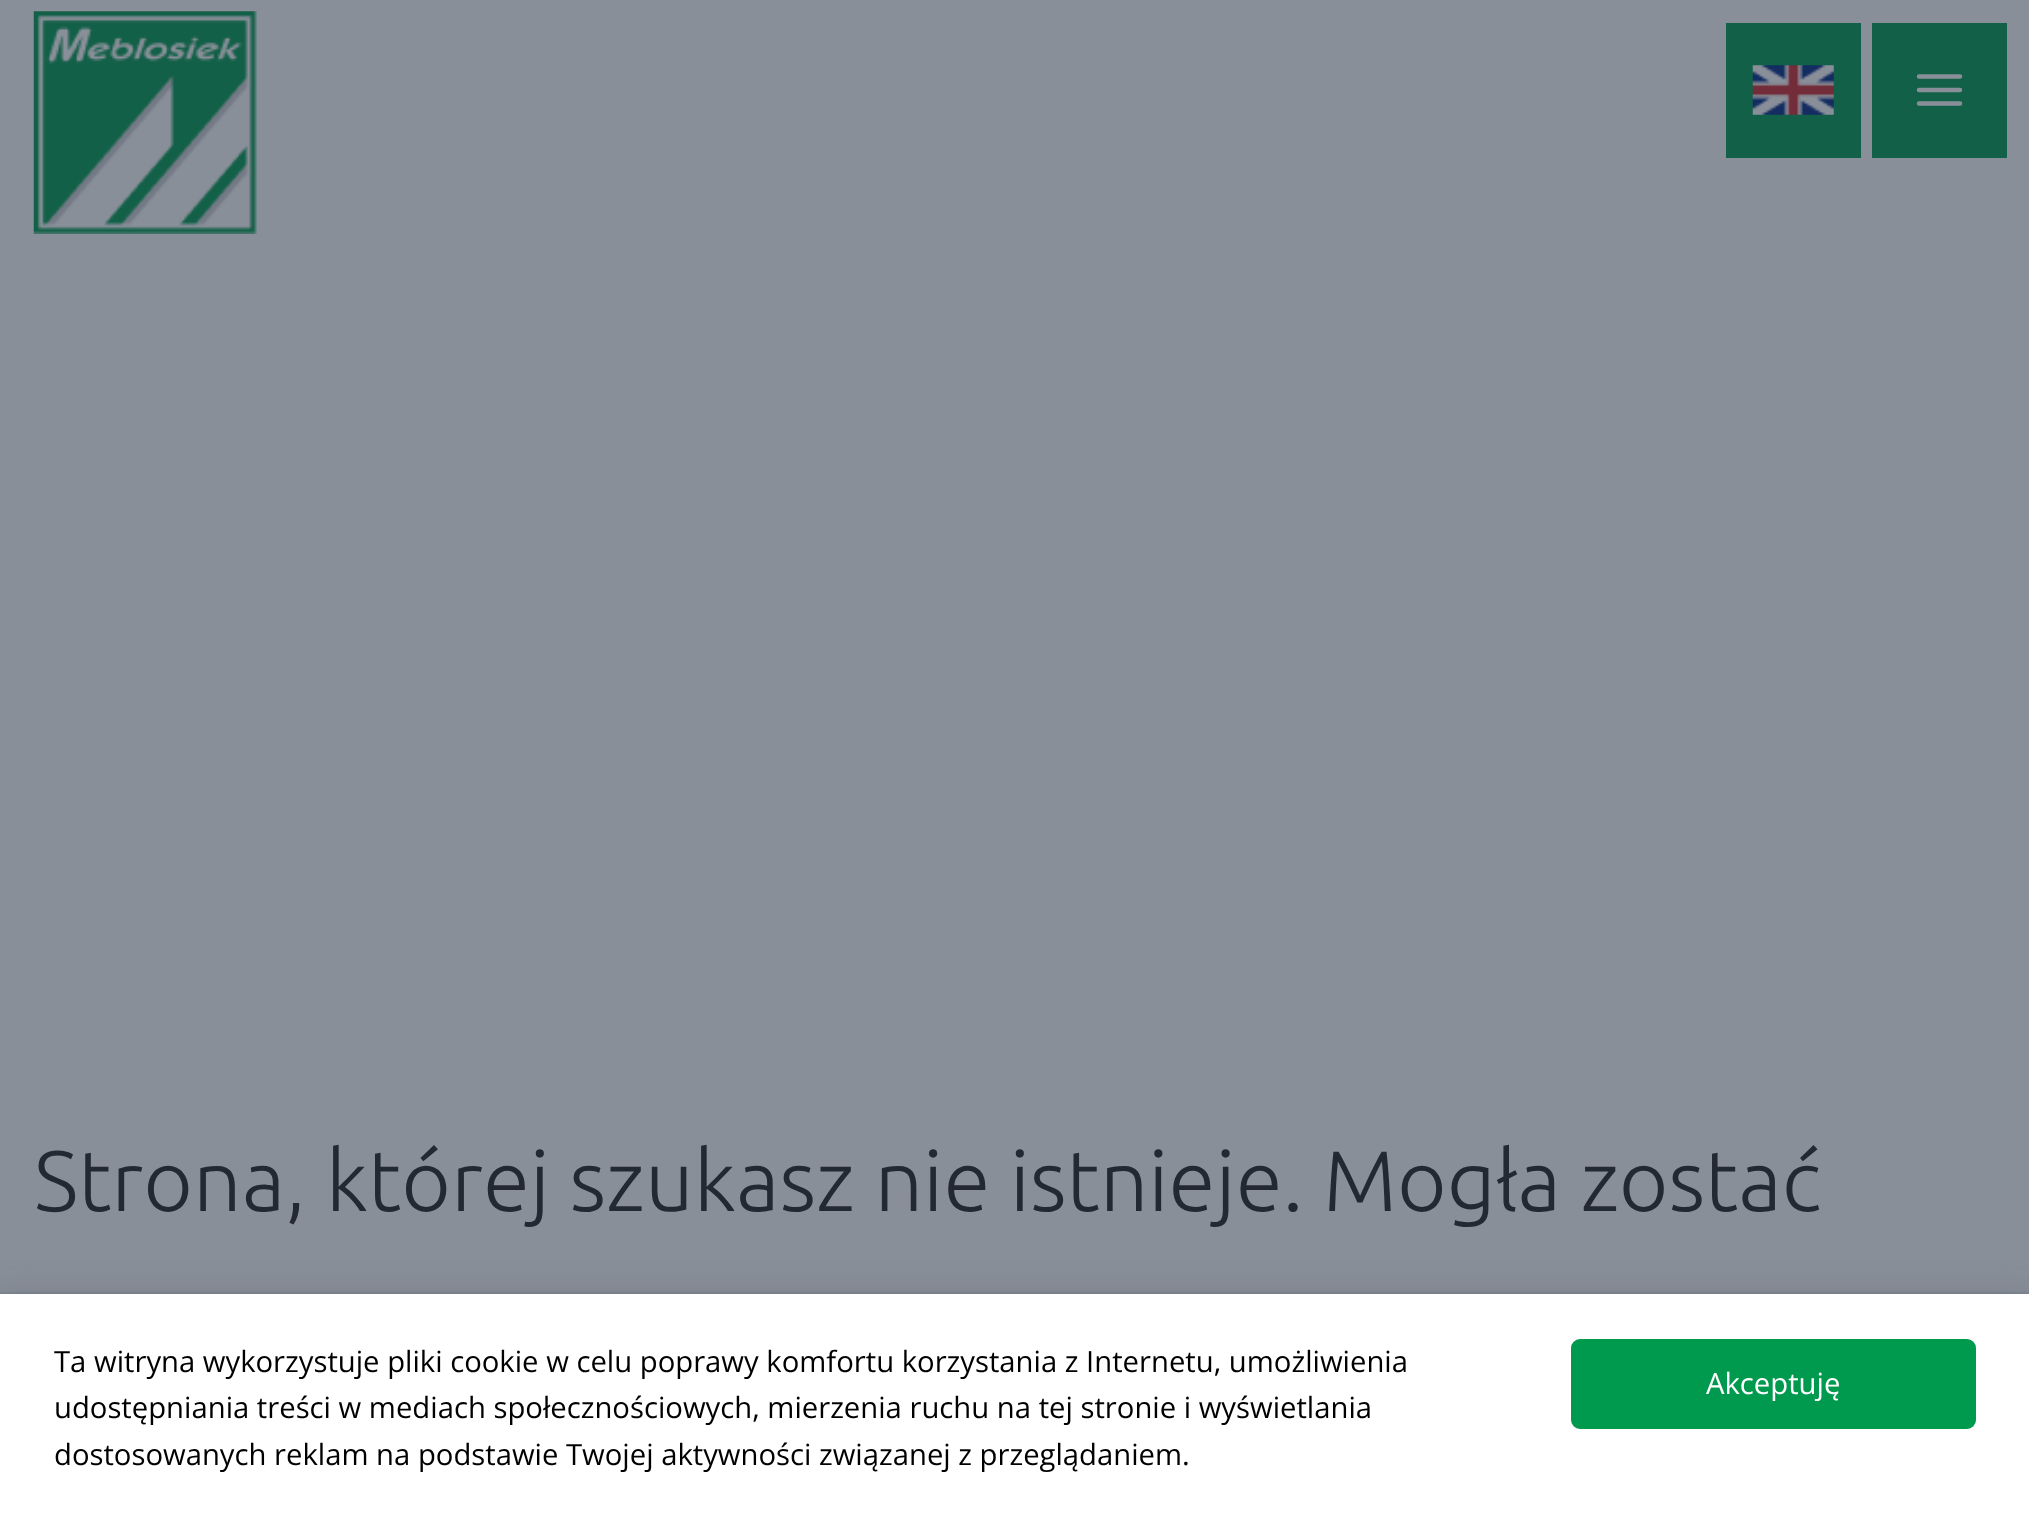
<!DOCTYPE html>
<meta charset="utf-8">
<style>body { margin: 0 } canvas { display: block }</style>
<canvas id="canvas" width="2029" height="1523"></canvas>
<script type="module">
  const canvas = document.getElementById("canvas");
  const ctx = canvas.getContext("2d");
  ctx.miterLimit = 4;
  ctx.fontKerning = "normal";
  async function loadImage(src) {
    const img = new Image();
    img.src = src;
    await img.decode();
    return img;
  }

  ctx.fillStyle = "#898f99";
  ctx.fillRect(0, 0, 2029, 1523);
  ctx.drawImage(await loadImage("img1.png"), 33, 11, 224, 223);
  ctx.fillStyle = "#136048";
  ctx.fillRect(1726, 23, 135, 135);
  ctx.drawImage(await loadImage("img2.png"), 1752, 65, 82, 50);
  ctx.fillRect(1872, 23, 135, 135);
  ctx.beginPath();
  ctx.moveTo(1919, 90);
  ctx.lineTo(1960, 90);
  ctx.moveTo(1919, 76.5);
  ctx.lineTo(1960, 76.5);
  ctx.moveTo(1919, 103.5);
  ctx.lineTo(1960, 103.5);
  ctx.strokeStyle = "#898f99";
  ctx.lineWidth = 4.5;
  ctx.lineCap = "round";
  ctx.lineJoin = "round";
  ctx.stroke();
  ctx.font = "300 85.5px Ubuntu";
  ctx.fillStyle = "#232933";
  ctx.fillText("Strona, której szukasz nie istnieje. Mogła zostać", 34, 1211);
  ctx.fillStyle = "rgba(36, 47, 66, 0.31)";
  ctx.filter = "blur(22.5px)";
  ctx.beginPath();
  ctx.rect(-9, 1307, 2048, 203);
  ctx.fill();
  ctx.filter = "none";
  ctx.strokeStyle = "rgba(36, 47, 66, 0.08)";
  ctx.lineWidth = 2;
  ctx.lineJoin = "miter";
  ctx.strokeRect(-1, 1293, 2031, 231);
  ctx.fillStyle = "#ffffff";
  ctx.fillRect(0, 1294, 2029, 229);
  ctx.font = "29.25px Open Sans";
  ctx.fillStyle = "#000000";
  ctx.fillText("Ta witryna wykorzystuje pliki cookie w celu poprawy komfortu korzystania z Internetu, umożliwienia", 54, 1372);
  ctx.fillText("udostępniania treści w mediach społecznościowych, mierzenia ruchu na tej stronie i wyświetlania", 54, 1418);
  ctx.fillText("dostosowanych reklam na podstawie Twojej aktywności związanej z przeglądaniem.", 54, 1465);
  ctx.fillStyle = "#009a4e";
  ctx.beginPath();
  ctx.roundRect(1572, 1340, 403, 88, 8);
  ctx.fill();
  ctx.strokeStyle = "#009a4e";
  ctx.stroke();
  ctx.fillStyle = "#ffffff";
  ctx.fillText("Akceptuję", 1706, 1394);
</script>
